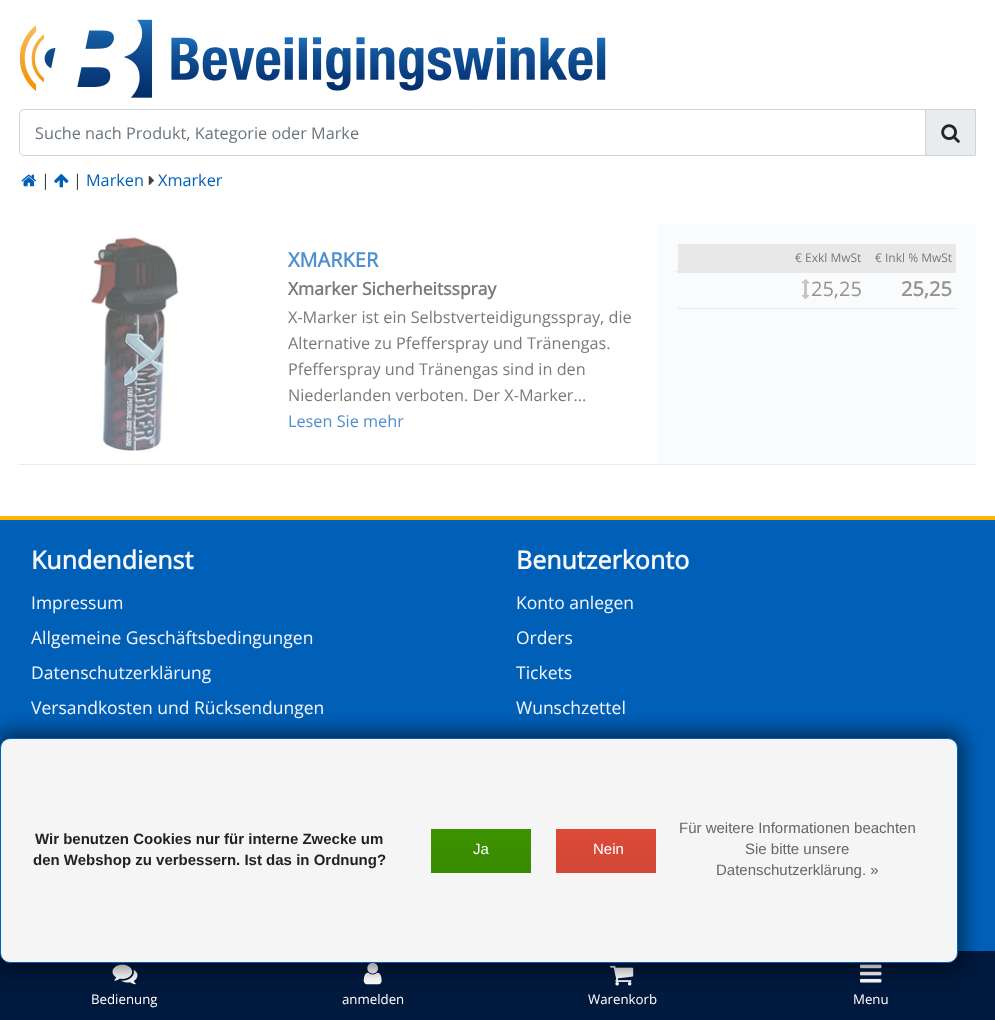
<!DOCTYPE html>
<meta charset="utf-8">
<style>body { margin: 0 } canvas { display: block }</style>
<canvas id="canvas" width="995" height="1020"></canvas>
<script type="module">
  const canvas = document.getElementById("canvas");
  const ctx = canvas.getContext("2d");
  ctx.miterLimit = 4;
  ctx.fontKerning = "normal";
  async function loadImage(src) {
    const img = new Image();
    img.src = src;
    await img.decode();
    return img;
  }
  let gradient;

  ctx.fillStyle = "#ffffff";
  ctx.fillRect(0, 0, 995, 1020);
  ctx.drawImage(await loadImage("img1.png"), 19, 19, 587, 79);
  ctx.fillStyle = "#e9ecef";
  ctx.beginPath();
  ctx.rect(925.5, 109.5, 50, 46);
  ctx.fill();
  ctx.strokeStyle = "#ced4da";
  ctx.stroke();
  ctx.beginPath();
  ctx.roundRect(19.5, 109.5, 906, 46, [4.5, 0, 0, 4.5]);
  ctx.stroke();
  ctx.font = "16.25px Open Sans";
  ctx.fillStyle = "#6c757d";
  ctx.fillText("Suche nach Produkt, Kategorie oder Marke", 35, 139);
  ctx.drawImage(await loadImage("img2.png"), 941, 124, 19, 19);
  ctx.drawImage(await loadImage("img3.png"), 21, 174, 16, 13);
  ctx.fillStyle = "#414141";
  ctx.fillText("|", 41, 186);
  ctx.drawImage(await loadImage("img4.png"), 54, 174, 15, 14);
  ctx.fillText("|", 73, 186);
  ctx.fillStyle = "#0060b8";
  ctx.fillText("Marken", 86, 186);
  ctx.drawImage(await loadImage("img5.png"), 148, 175, 6, 10);
  ctx.fillText("Xmarker", 158, 186);
  ctx.fillStyle = "#e8ebee";
  ctx.fillRect(19, 464, 957, 1);
  ctx.drawImage(await loadImage("img6.png"), 90, 235, 89, 217);
  ctx.font = "bold 20px Open Sans";
  ctx.fillStyle = "#4d90cd";
  ctx.fillText("XMARKER", 288, 267);
  ctx.font = "bold 17.5px Open Sans";
  ctx.fillStyle = "#7a7a7a";
  ctx.fillText("Xmarker Sicherheitsspray", 288, 295);
  ctx.font = "16.25px Open Sans";
  ctx.fillText("X-Marker ist ein Selbstverteidigungsspray, die", 288, 323);
  ctx.fillText("Alternative zu Pfefferspray und Tränengas.", 288, 349);
  ctx.fillText("Pfefferspray und Tränengas sind in den", 288, 375);
  ctx.fillText("Niederlanden verboten. Der X-Marker...", 288, 401);
  ctx.fillStyle = "#4d90cd";
  ctx.fillText("Lesen Sie mehr", 288, 427);
  ctx.fillStyle = "#fafbfc";
  ctx.fillRect(658, 224, 318, 240);
  ctx.fillStyle = "#e8e8e8";
  ctx.fillRect(678, 308, 278, 1);
  ctx.fillRect(678, 244, 278, 29);
  ctx.font = "12px Open Sans";
  ctx.fillStyle = "#7a7a7a";
  ctx.fillText("€ Exkl MwSt", 795, 262);
  ctx.fillText("€ Inkl % MwSt", 875, 262);
  ctx.fillStyle = "#e8e8e8";
  ctx.fillRect(676, 271, 2, 1);
  ctx.drawImage(await loadImage("img7.png"), 802, 279, 7, 20);
  ctx.font = "20px Open Sans";
  ctx.fillStyle = "#949494";
  ctx.fillText("25,25", 811, 296);
  ctx.font = "bold 20px Open Sans";
  ctx.fillText("25,25", 901, 296);
  ctx.fillStyle = "#0060b8";
  ctx.fillRect(0, 520, 995, 431);
  ctx.fillStyle = "#ffb600";
  ctx.fillRect(0, 516, 995, 4);
  ctx.font = "bold 25px Open Sans";
  ctx.fillStyle = "#f7f7f7";
  ctx.fillText("Kundendienst", 31, 569);
  ctx.font = "17.5px Open Sans";
  ctx.fillText("Impressum", 31, 609);
  ctx.fillText("Allgemeine Geschäftsbedingungen", 31, 644);
  ctx.fillText("Datenschutzerklärung", 31, 679);
  ctx.fillText("Versandkosten und Rücksendungen", 31, 714);
  ctx.font = "bold 25px Open Sans";
  ctx.fillText("Benutzerkonto", 516, 569);
  ctx.font = "17.5px Open Sans";
  ctx.fillText("Konto anlegen", 516, 609);
  ctx.fillText("Orders", 516, 644);
  ctx.fillText("Tickets", 516, 679);
  ctx.fillText("Wunschzettel", 516, 714);
  ctx.fillStyle = "#00193d";
  ctx.fillRect(0, 951, 995, 69);
  ctx.drawImage(await loadImage("img8.png"), 112, 964, 26, 21);
  ctx.drawImage(await loadImage("img9.png"), 363, 963, 19, 22);
  ctx.drawImage(await loadImage("img10.png"), 610, 965, 24, 21);
  ctx.drawImage(await loadImage("img11.png"), 860, 964, 22, 19);
  ctx.fillStyle = "rgba(0, 0, 0, 0.5)";
  ctx.filter = "blur(9.5px)";
  ctx.beginPath();
  ctx.roundRect(-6, 731, 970, 238, 16);
  ctx.fill();
  ctx.filter = "none";
  ctx.fillStyle = "#f5f5f5";
  ctx.beginPath();
  ctx.roundRect(0.5, 738.5, 957, 224, 9.5);
  ctx.fill();
  ctx.strokeStyle = "#0060b8";
  ctx.stroke();
  ctx.font = "bold 15px Liberation Sans";
  ctx.fillStyle = "#222222";
  ctx.fillText("Wir benutzen Cookies nur für interne Zwecke um", 35, 844);
  ctx.font = "15px Liberation Sans";
  ctx.fillStyle = "#666666";
  ctx.fillText("Für weitere Informationen beachten", 679, 833);
  ctx.fillText("Sie bitte unsere", 745, 854);
  ctx.fillText("Datenschutzerklärung. »", 716, 875);
  gradient = ctx.createLinearGradient(481, 829, 481, 873);
  gradient.addColorStop(0, "#3c9300");
  gradient.addColorStop(1, "#398a00");
  ctx.fillStyle = gradient;
  ctx.fillRect(431, 829, 100, 44);
  ctx.fillStyle = "#ffffff";
  ctx.fillText("Ja", 473, 854);
  gradient = ctx.createLinearGradient(606, 829, 606, 873);
  gradient.addColorStop(0, "#dc4a38");
  gradient.addColorStop(1, "#d14836");
  ctx.fillStyle = gradient;
  ctx.fillRect(556, 829, 100, 44);
  ctx.fillStyle = "#ffffff";
  ctx.fillText("Nein", 593, 854);
  ctx.font = "bold 15px Liberation Sans";
  ctx.fillStyle = "#222222";
  ctx.fillText("den Webshop zu verbessern. Ist das in Ordnung?", 33, 865);
  ctx.font = "13.25px Open Sans";
  ctx.fillStyle = "#ffffff";
  ctx.fillText("Bedienung", 91, 1004);
  ctx.fillText("anmelden", 342, 1004);
  ctx.fillText("Warenkorb", 588, 1004);
  ctx.fillText("Menu", 853, 1004);
</script>
